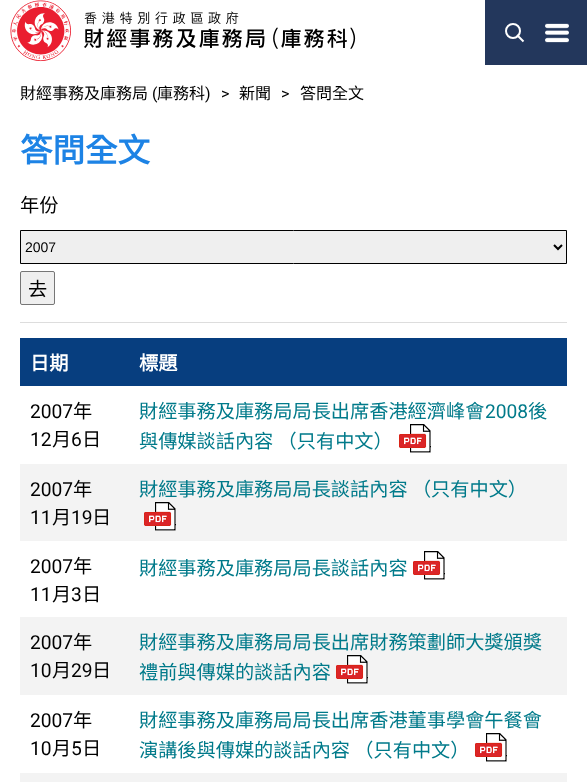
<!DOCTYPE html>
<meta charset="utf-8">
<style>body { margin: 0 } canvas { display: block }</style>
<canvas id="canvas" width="587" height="782"></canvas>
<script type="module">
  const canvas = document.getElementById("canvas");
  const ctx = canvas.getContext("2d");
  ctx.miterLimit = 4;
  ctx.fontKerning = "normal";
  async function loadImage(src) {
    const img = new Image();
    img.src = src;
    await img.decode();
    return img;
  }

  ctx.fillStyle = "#ffffff";
  ctx.fillRect(0, 0, 587, 782);
  ctx.drawImage(await loadImage("img1.png"), 10, 0, 346, 62);
  ctx.fillStyle = "#23375c";
  ctx.fillRect(485, 0, 102, 65);
  ctx.beginPath();
  ctx.arc(513, 31, 7, 0, Math.PI * 2);
  ctx.strokeStyle = "#ffffff";
  ctx.lineWidth = 2;
  ctx.stroke();
  ctx.beginPath();
  ctx.moveTo(517, 35);
  ctx.lineTo(523.5, 41.5);
  ctx.stroke();
  ctx.drawImage(await loadImage("img2.png"), 545, 23, 24, 20);
  ctx.font = "16px Noto Sans CJK HK";
  ctx.fillStyle = "#000000";
  ctx.fillText("財經事務及庫務局", 20, 99);
  ctx.font = "16px Roboto";
  ctx.fillText("(", 152, 99);
  ctx.font = "16px Noto Sans CJK HK";
  ctx.fillText("庫務科", 157, 99);
  ctx.font = "16px Roboto";
  ctx.fillText(")", 205, 99);
  ctx.fillText(">", 221, 99);
  ctx.font = "16px Noto Sans CJK HK";
  ctx.fillText("新聞", 239, 99);
  ctx.font = "16px Roboto";
  ctx.fillText(">", 281, 99);
  ctx.font = "16px Noto Sans CJK HK";
  ctx.fillText("答問全文", 300, 99);
  ctx.font = "bold 32.5px Noto Sans CJK HK";
  ctx.fillStyle = "#1d83e5";
  ctx.fillText("答問全文", 20, 162);
  ctx.fillStyle = "#dddddd";
  ctx.fillRect(20, 322, 547, 1);
  ctx.font = "19.2px Noto Sans CJK HK";
  ctx.fillStyle = "#000000";
  ctx.fillText("年份", 20, 212);
  ctx.fillStyle = "#efefef";
  ctx.beginPath();
  ctx.rect(20.5, 230.5, 546, 33);
  ctx.fill();
  ctx.strokeStyle = "#000000";
  ctx.lineWidth = 1;
  ctx.stroke();
  ctx.beginPath();
  ctx.moveTo(554, 245);
  ctx.lineTo(558, 249);
  ctx.lineTo(562, 245);
  ctx.lineWidth = 2;
  ctx.stroke();
  ctx.font = "14px Liberation Sans";
  ctx.fillStyle = "#000000";
  ctx.fillText("2007", 25, 252);
  ctx.fillStyle = "#efefef";
  ctx.beginPath();
  ctx.roundRect(20.5, 271.5, 34, 33, 1.5);
  ctx.fill();
  ctx.strokeStyle = "#767676";
  ctx.lineWidth = 1;
  ctx.stroke();
  ctx.font = "19.2px Noto Sans CJK HK";
  ctx.fillStyle = "#000000";
  ctx.fillText("去", 28, 296);
  ctx.fillStyle = "#073e7f";
  ctx.fillRect(20, 338, 547, 48);
  ctx.font = "bold 19.2px Noto Sans CJK HK";
  ctx.fillStyle = "#ffffff";
  ctx.fillText("日期", 30, 370);
  ctx.fillText("標題", 139, 370);
  ctx.font = "19.2px Roboto";
  ctx.fillStyle = "#000000";
  ctx.fillText("2007", 30, 418);
  ctx.font = "19.2px Noto Sans CJK HK";
  ctx.fillText("年", 73, 418);
  ctx.font = "19.2px Roboto";
  ctx.fillText("12", 30, 446);
  ctx.font = "19.2px Noto Sans CJK HK";
  ctx.fillText("月", 52, 446);
  ctx.font = "19.2px Roboto";
  ctx.fillText("6", 71, 446);
  ctx.font = "19.2px Noto Sans CJK HK";
  ctx.fillText("日", 82, 446);
  ctx.fillStyle = "#007a8a";
  ctx.fillText("財經事務及庫務局局長出席香港經濟峰會", 139, 418);
  ctx.font = "19.2px Roboto";
  ctx.fillText("2008", 485, 418);
  ctx.font = "19.2px Noto Sans CJK HK";
  ctx.fillText("後", 528, 418);
  ctx.fillText("與傳媒談話內容 （只有中文）", 139, 448);
  ctx.drawImage(await loadImage("img3.png"), 399, 424, 32, 29);
  ctx.fillStyle = "#f3f3f3";
  ctx.fillRect(20, 464, 547, 77);
  ctx.font = "19.2px Roboto";
  ctx.fillStyle = "#000000";
  ctx.fillText("2007", 30, 496);
  ctx.font = "19.2px Noto Sans CJK HK";
  ctx.fillText("年", 73, 496);
  ctx.font = "19.2px Roboto";
  ctx.fillText("11", 30, 524);
  ctx.font = "19.2px Noto Sans CJK HK";
  ctx.fillText("月", 52, 524);
  ctx.font = "19.2px Roboto";
  ctx.fillText("19", 71, 524);
  ctx.font = "19.2px Noto Sans CJK HK";
  ctx.fillText("日", 92, 524);
  ctx.fillStyle = "#007a8a";
  ctx.fillText("財經事務及庫務局局長談話內容 （只有中文）", 139, 496);
  ctx.drawImage(await loadImage("img4.png"), 144, 502, 32, 29);
  ctx.font = "19.2px Roboto";
  ctx.fillStyle = "#000000";
  ctx.fillText("2007", 30, 573);
  ctx.font = "19.2px Noto Sans CJK HK";
  ctx.fillText("年", 73, 573);
  ctx.font = "19.2px Roboto";
  ctx.fillText("11", 30, 601);
  ctx.font = "19.2px Noto Sans CJK HK";
  ctx.fillText("月", 52, 601);
  ctx.font = "19.2px Roboto";
  ctx.fillText("3", 71, 601);
  ctx.font = "19.2px Noto Sans CJK HK";
  ctx.fillText("日", 82, 601);
  ctx.fillStyle = "#007a8a";
  ctx.fillText("財經事務及庫務局局長談話內容", 139, 575);
  ctx.drawImage(await loadImage("img3.png"), 413, 551, 32, 29);
  ctx.fillStyle = "#f3f3f3";
  ctx.fillRect(20, 617, 547, 78);
  ctx.font = "19.2px Roboto";
  ctx.fillStyle = "#000000";
  ctx.fillText("2007", 30, 649);
  ctx.font = "19.2px Noto Sans CJK HK";
  ctx.fillText("年", 73, 649);
  ctx.font = "19.2px Roboto";
  ctx.fillText("10", 30, 677);
  ctx.font = "19.2px Noto Sans CJK HK";
  ctx.fillText("月", 52, 677);
  ctx.font = "19.2px Roboto";
  ctx.fillText("29", 71, 677);
  ctx.font = "19.2px Noto Sans CJK HK";
  ctx.fillText("日", 92, 677);
  ctx.fillStyle = "#007a8a";
  ctx.fillText("財經事務及庫務局局長出席財務策劃師大獎頒獎", 139, 649);
  ctx.fillText("禮前與傳媒的談話內容", 139, 679);
  ctx.drawImage(await loadImage("img4.png"), 336, 655, 32, 29);
  ctx.font = "19.2px Roboto";
  ctx.fillStyle = "#000000";
  ctx.fillText("2007", 30, 727);
  ctx.font = "19.2px Noto Sans CJK HK";
  ctx.fillText("年", 73, 727);
  ctx.font = "19.2px Roboto";
  ctx.fillText("10", 30, 755);
  ctx.font = "19.2px Noto Sans CJK HK";
  ctx.fillText("月", 52, 755);
  ctx.font = "19.2px Roboto";
  ctx.fillText("5", 71, 755);
  ctx.font = "19.2px Noto Sans CJK HK";
  ctx.fillText("日", 82, 755);
  ctx.fillStyle = "#007a8a";
  ctx.fillText("財經事務及庫務局局長出席香港董事學會午餐會", 139, 727);
  ctx.fillText("演講後與傳媒的談話內容 （只有中文）", 139, 757);
  ctx.drawImage(await loadImage("img3.png"), 475, 733, 32, 29);
  ctx.fillStyle = "#f3f3f3";
  ctx.fillRect(20, 773, 547, 9);
</script>
